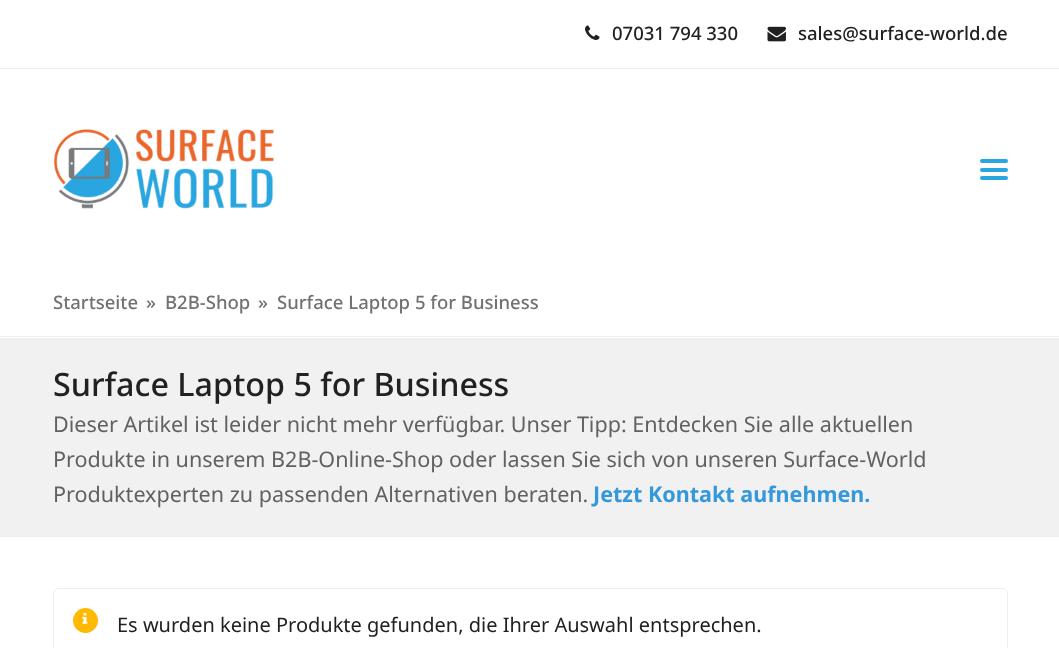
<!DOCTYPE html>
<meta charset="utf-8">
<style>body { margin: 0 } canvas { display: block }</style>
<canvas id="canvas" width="1059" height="648"></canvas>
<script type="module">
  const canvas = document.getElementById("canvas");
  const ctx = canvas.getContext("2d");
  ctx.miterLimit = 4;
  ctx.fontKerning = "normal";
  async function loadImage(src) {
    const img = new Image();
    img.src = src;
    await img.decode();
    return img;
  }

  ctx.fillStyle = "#ffffff";
  ctx.fillRect(0, 0, 1059, 648);
  ctx.fillStyle = "#eeeeee";
  ctx.fillRect(0, 68, 1059, 1);
  ctx.drawImage(await loadImage("img1.png"), 585, 25, 15, 15);
  ctx.font = "500 18.5px Noto Sans";
  ctx.fillStyle = "#212121";
  ctx.fillText("07031 794 330", 612, 40);
  ctx.drawImage(await loadImage("img2.png"), 767, 26, 19, 16);
  ctx.fillText("sales@surface-world.de", 798, 40);
  ctx.drawImage(await loadImage("img3.png"), 54, 128, 220, 81);
  ctx.fillStyle = "#29a6df";
  ctx.beginPath();
  ctx.roundRect(980, 168, 28, 4, 2);
  ctx.fill();
  ctx.beginPath();
  ctx.roundRect(980, 159, 28, 4, 2);
  ctx.fill();
  ctx.beginPath();
  ctx.roundRect(980, 176, 28, 4, 2);
  ctx.fill();
  ctx.fillStyle = "#727272";
  ctx.fillText("Startseite", 53, 309);
  ctx.fillText("»", 146, 309);
  ctx.fillText("B2B-Shop", 165, 309);
  ctx.fillText("»", 258, 309);
  ctx.fillText("Surface Laptop 5 for Business", 277, 309);
  ctx.fillStyle = "#f1f1f1";
  ctx.fillRect(0, 338, 1059, 198);
  ctx.fillStyle = "#eeeeee";
  ctx.fillRect(0, 336, 1059, 1);
  ctx.fillRect(0, 536, 1059, 1);
  ctx.font = "500 32.25px Noto Sans";
  ctx.fillStyle = "#212121";
  ctx.fillText("Surface Laptop 5 for Business", 53, 396);
  ctx.font = "21.55px Noto Sans";
  ctx.fillStyle = "#616161";
  ctx.fillText("Dieser Artikel ist leider nicht mehr verfügbar. Unser Tipp: Entdecken Sie alle aktuellen", 53, 432);
  ctx.fillText("Produkte in unserem B2B-Online-Shop oder lassen Sie sich von unseren Surface-World", 53, 467);
  ctx.fillText("Produktexperten zu passenden Alternativen beraten.", 53, 502);
  ctx.font = "bold 21.55px Noto Sans";
  ctx.fillStyle = "#3498db";
  ctx.fillText("Jetzt Kontakt aufnehmen.", 593, 502);
  ctx.beginPath();
  ctx.roundRect(53.5, 588.5, 954, 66, 5.5);
  ctx.strokeStyle = "#eeeeee";
  ctx.stroke();
  ctx.fillStyle = "#ffb900";
  ctx.beginPath();
  ctx.arc(85.5, 620.5, 12.5, 0, Math.PI * 2);
  ctx.fill();
  ctx.drawImage(await loadImage("img4.png"), 82, 612, 6, 12);
  ctx.font = "20px Noto Sans";
  ctx.fillStyle = "#212121";
  ctx.fillText("Es wurden keine Produkte gefunden, die Ihrer Auswahl entsprechen.", 117, 632);
</script>
